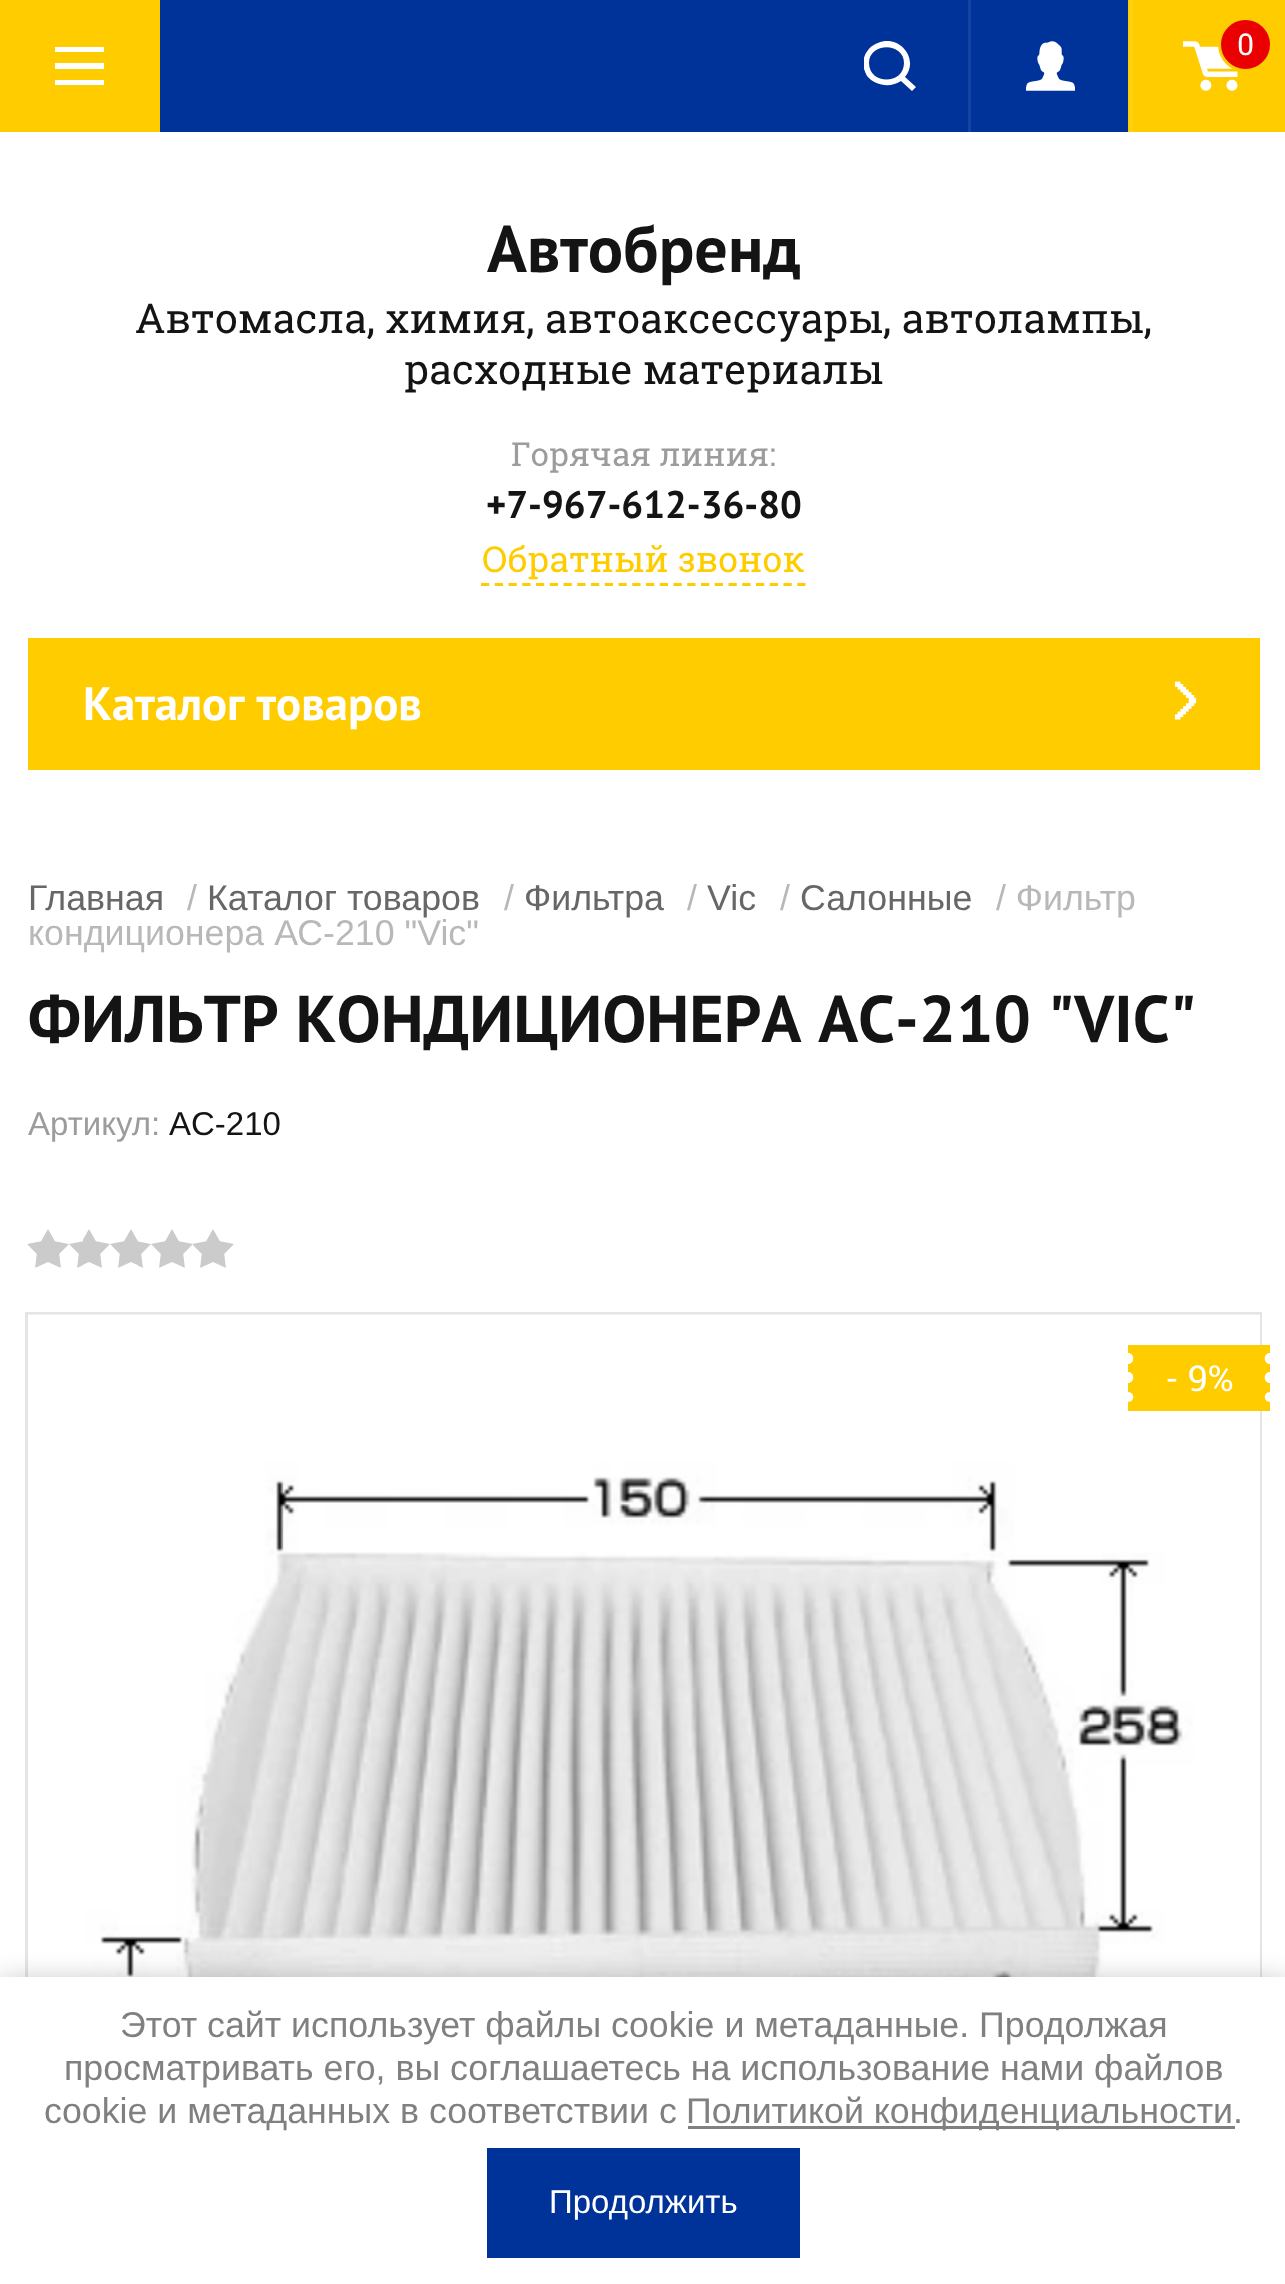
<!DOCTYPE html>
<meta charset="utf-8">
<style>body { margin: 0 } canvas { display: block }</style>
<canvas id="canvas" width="1285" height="2284"></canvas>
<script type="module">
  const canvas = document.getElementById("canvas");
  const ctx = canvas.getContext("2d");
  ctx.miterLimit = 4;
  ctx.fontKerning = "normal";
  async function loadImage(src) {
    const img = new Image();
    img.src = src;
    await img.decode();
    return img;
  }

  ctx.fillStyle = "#ffffff";
  ctx.fillRect(0, 0, 1285, 2284);
  ctx.fillStyle = "#003399";
  ctx.fillRect(160, 0, 968, 132);
  ctx.fillStyle = "#ffcc00";
  ctx.fillRect(0, 0, 160, 132);
  ctx.fillStyle = "#ffffff";
  ctx.beginPath();
  ctx.moveTo(55, 85);
  ctx.lineTo(55, 80);
  ctx.lineTo(104, 80);
  ctx.lineTo(104, 85);
  ctx.closePath();
  ctx.moveTo(55, 63);
  ctx.lineTo(104, 63);
  ctx.lineTo(104, 69);
  ctx.lineTo(55, 69);
  ctx.closePath();
  ctx.moveTo(55, 47);
  ctx.lineTo(104, 47);
  ctx.lineTo(104, 52);
  ctx.lineTo(55, 52);
  ctx.closePath();
  ctx.fill();
  ctx.save();
  ctx.beginPath();
  ctx.rect(864, 41, 52, 50);
  ctx.clip();
  ctx.beginPath();
  ctx.moveTo(916, 87);
  ctx.lineTo(905, 77);
  ctx.bezierCurveTo(920, 59, 899, 34, 878, 43);
  ctx.bezierCurveTo(872, 45, 868, 49, 865, 55);
  ctx.bezierCurveTo(862, 62, 863, 69, 867, 76);
  ctx.bezierCurveTo(875, 86, 891, 88, 901, 81);
  ctx.lineTo(912, 91);
  ctx.closePath();
  ctx.moveTo(869, 63);
  ctx.bezierCurveTo(869, 42, 904, 42, 904, 63);
  ctx.bezierCurveTo(904, 85, 869, 85, 869, 63);
  ctx.closePath();
  ctx.fill();
  ctx.restore();
  ctx.drawImage(await loadImage("img1.png"), 1026, 41, 49, 50);
  ctx.fillStyle = "#ffcc00";
  ctx.fillRect(1128, 0, 157, 132);
  ctx.fillStyle = "#ffd014";
  ctx.fillRect(1130, 0, 3, 132);
  ctx.fillStyle = "#1443a1";
  ctx.fillRect(968, 0, 3, 132);
  ctx.drawImage(await loadImage("img2.png"), 1183, 41, 55, 50);
  ctx.fillStyle = "#ea0000";
  ctx.beginPath();
  ctx.arc(1245.5, 44.5, 26, 0, Math.PI * 2);
  ctx.fill();
  ctx.strokeStyle = "#ffcc00";
  ctx.lineWidth = 3;
  ctx.stroke();
  ctx.font = "30px Roboto Slab";
  ctx.fillStyle = "#ffffff";
  ctx.fillText("0", 1237, 55);
  ctx.font = "bold 66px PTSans";
  ctx.fillStyle = "#141414";
  ctx.fillText("Автобренд", 487, 272);
  ctx.font = "41.25px Roboto Slab";
  ctx.fillText("Автомасла, химия, автоаксессуары, автолампы,", 135, 333);
  ctx.fillText("расходные материалы", 404, 384);
  ctx.font = "33px Roboto Slab";
  ctx.fillStyle = "#9c9c9c";
  ctx.fillText("Горячая линия:", 511, 466);
  ctx.font = "bold 38.5px PTSans";
  ctx.fillStyle = "#141414";
  ctx.fillText("+7-967-612-36-80", 486, 518);
  ctx.font = "35.75px Roboto Slab";
  ctx.fillStyle = "#ffcc00";
  ctx.fillText("Обратный звонок", 482, 572);
  ctx.beginPath();
  ctx.moveTo(481, 584.5);
  ctx.lineTo(806, 584.5);
  ctx.lineWidth = 2.8;
  ctx.setLineDash([8.25, 5.5]);
  ctx.stroke();
  ctx.fillRect(28, 638, 1232, 132);
  ctx.font = "bold 46.75px PTSans";
  ctx.fillStyle = "#ffffff";
  ctx.fillText("Каталог товаров", 83, 720);
  ctx.drawImage(await loadImage("img3.png"), 1174, 681, 23, 39);
  ctx.font = "35.75px Liberation Sans";
  ctx.fillStyle = "#676767";
  ctx.fillText("Главная", 28, 910);
  ctx.fillStyle = "#b8b8b8";
  ctx.fillText("/", 187, 910);
  ctx.fillStyle = "#676767";
  ctx.fillText("Каталог товаров", 207, 910);
  ctx.fillStyle = "#b8b8b8";
  ctx.fillText("/", 504, 910);
  ctx.fillStyle = "#676767";
  ctx.fillText("Фильтра", 524, 910);
  ctx.fillStyle = "#b8b8b8";
  ctx.fillText("/", 687, 910);
  ctx.fillStyle = "#676767";
  ctx.fillText("Vic", 707, 910);
  ctx.fillStyle = "#b8b8b8";
  ctx.fillText("/", 780, 910);
  ctx.fillStyle = "#676767";
  ctx.fillText("Салонные", 800, 910);
  ctx.fillStyle = "#b8b8b8";
  ctx.fillText("/ Фильтр", 996, 910);
  ctx.fillText("кондиционера АС-210 \"Vic\"", 28, 945);
  ctx.font = "bold 66px PTSans";
  ctx.fillStyle = "#141414";
  ctx.fillText("ФИЛЬТР КОНДИЦИОНЕРА АС-210 \"VIC\"", 28, 1042);
  ctx.font = "33px Liberation Sans";
  ctx.fillStyle = "#9c9c9c";
  ctx.fillText("Артикул:", 28, 1135);
  ctx.fillStyle = "#141414";
  ctx.fillText("AC-210", 169, 1135);
  ctx.drawImage(await loadImage("img4.png"), 27, 1229, 207, 39);
  ctx.strokeStyle = "#e5e5e5";
  ctx.lineWidth = 3;
  ctx.setLineDash([]);
  ctx.strokeRect(26.5, 1313.5, 1234, 783);
  ctx.drawImage(await loadImage("img5.png"), 28, 1314, 1232, 663);
  ctx.fillStyle = "#ffcc00";
  ctx.beginPath();
  ctx.moveTo(1270, 1402);
  ctx.lineTo(1270, 1411);
  ctx.lineTo(1128, 1411);
  ctx.lineTo(1128, 1402);
  ctx.bezierCurveTo(1135, 1402, 1135, 1392, 1128, 1392);
  ctx.lineTo(1128, 1383);
  ctx.bezierCurveTo(1135, 1383, 1135, 1372, 1128, 1372);
  ctx.lineTo(1128, 1364);
  ctx.bezierCurveTo(1135, 1364, 1135, 1353, 1128, 1353);
  ctx.lineTo(1128, 1345);
  ctx.lineTo(1270, 1345);
  ctx.lineTo(1270, 1353);
  ctx.bezierCurveTo(1263, 1353, 1263, 1364, 1270, 1364);
  ctx.lineTo(1270, 1372);
  ctx.bezierCurveTo(1263, 1372, 1263, 1383, 1270, 1383);
  ctx.lineTo(1270, 1392);
  ctx.bezierCurveTo(1263, 1392, 1263, 1402, 1270, 1402);
  ctx.closePath();
  ctx.fill();
  ctx.font = "35.75px Roboto Slab";
  ctx.fillStyle = "#ffffff";
  ctx.fillText("- 9%", 1165, 1391);
  ctx.fillStyle = "rgba(0, 0, 0, 0.23)";
  ctx.filter = "blur(14px)";
  ctx.beginPath();
  ctx.rect(0, 1980, 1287, 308);
  ctx.fill();
  ctx.filter = "none";
  ctx.fillStyle = "#ffffff";
  ctx.fillRect(0, 1977, 1285, 307);
  ctx.font = "35.75px Liberation Sans";
  ctx.fillStyle = "#808080";
  ctx.fillText("Этот сайт использует файлы cookie и метаданные. Продолжая", 120, 2037);
  ctx.fillText("просматривать его, вы соглашаетесь на использование нами файлов", 64, 2080);
  ctx.fillText("cookie и метаданных в соответствии с", 44, 2123);
  ctx.fillRect(688, 2126, 547, 3);
  ctx.fillText("Политикой конфиденциальности.", 686, 2123);
  ctx.fillStyle = "#003399";
  ctx.fillRect(487, 2148, 313, 110);
  ctx.font = "33px Liberation Sans";
  ctx.fillStyle = "#ffffff";
  ctx.fillText("Продолжить", 549, 2213);
</script>
